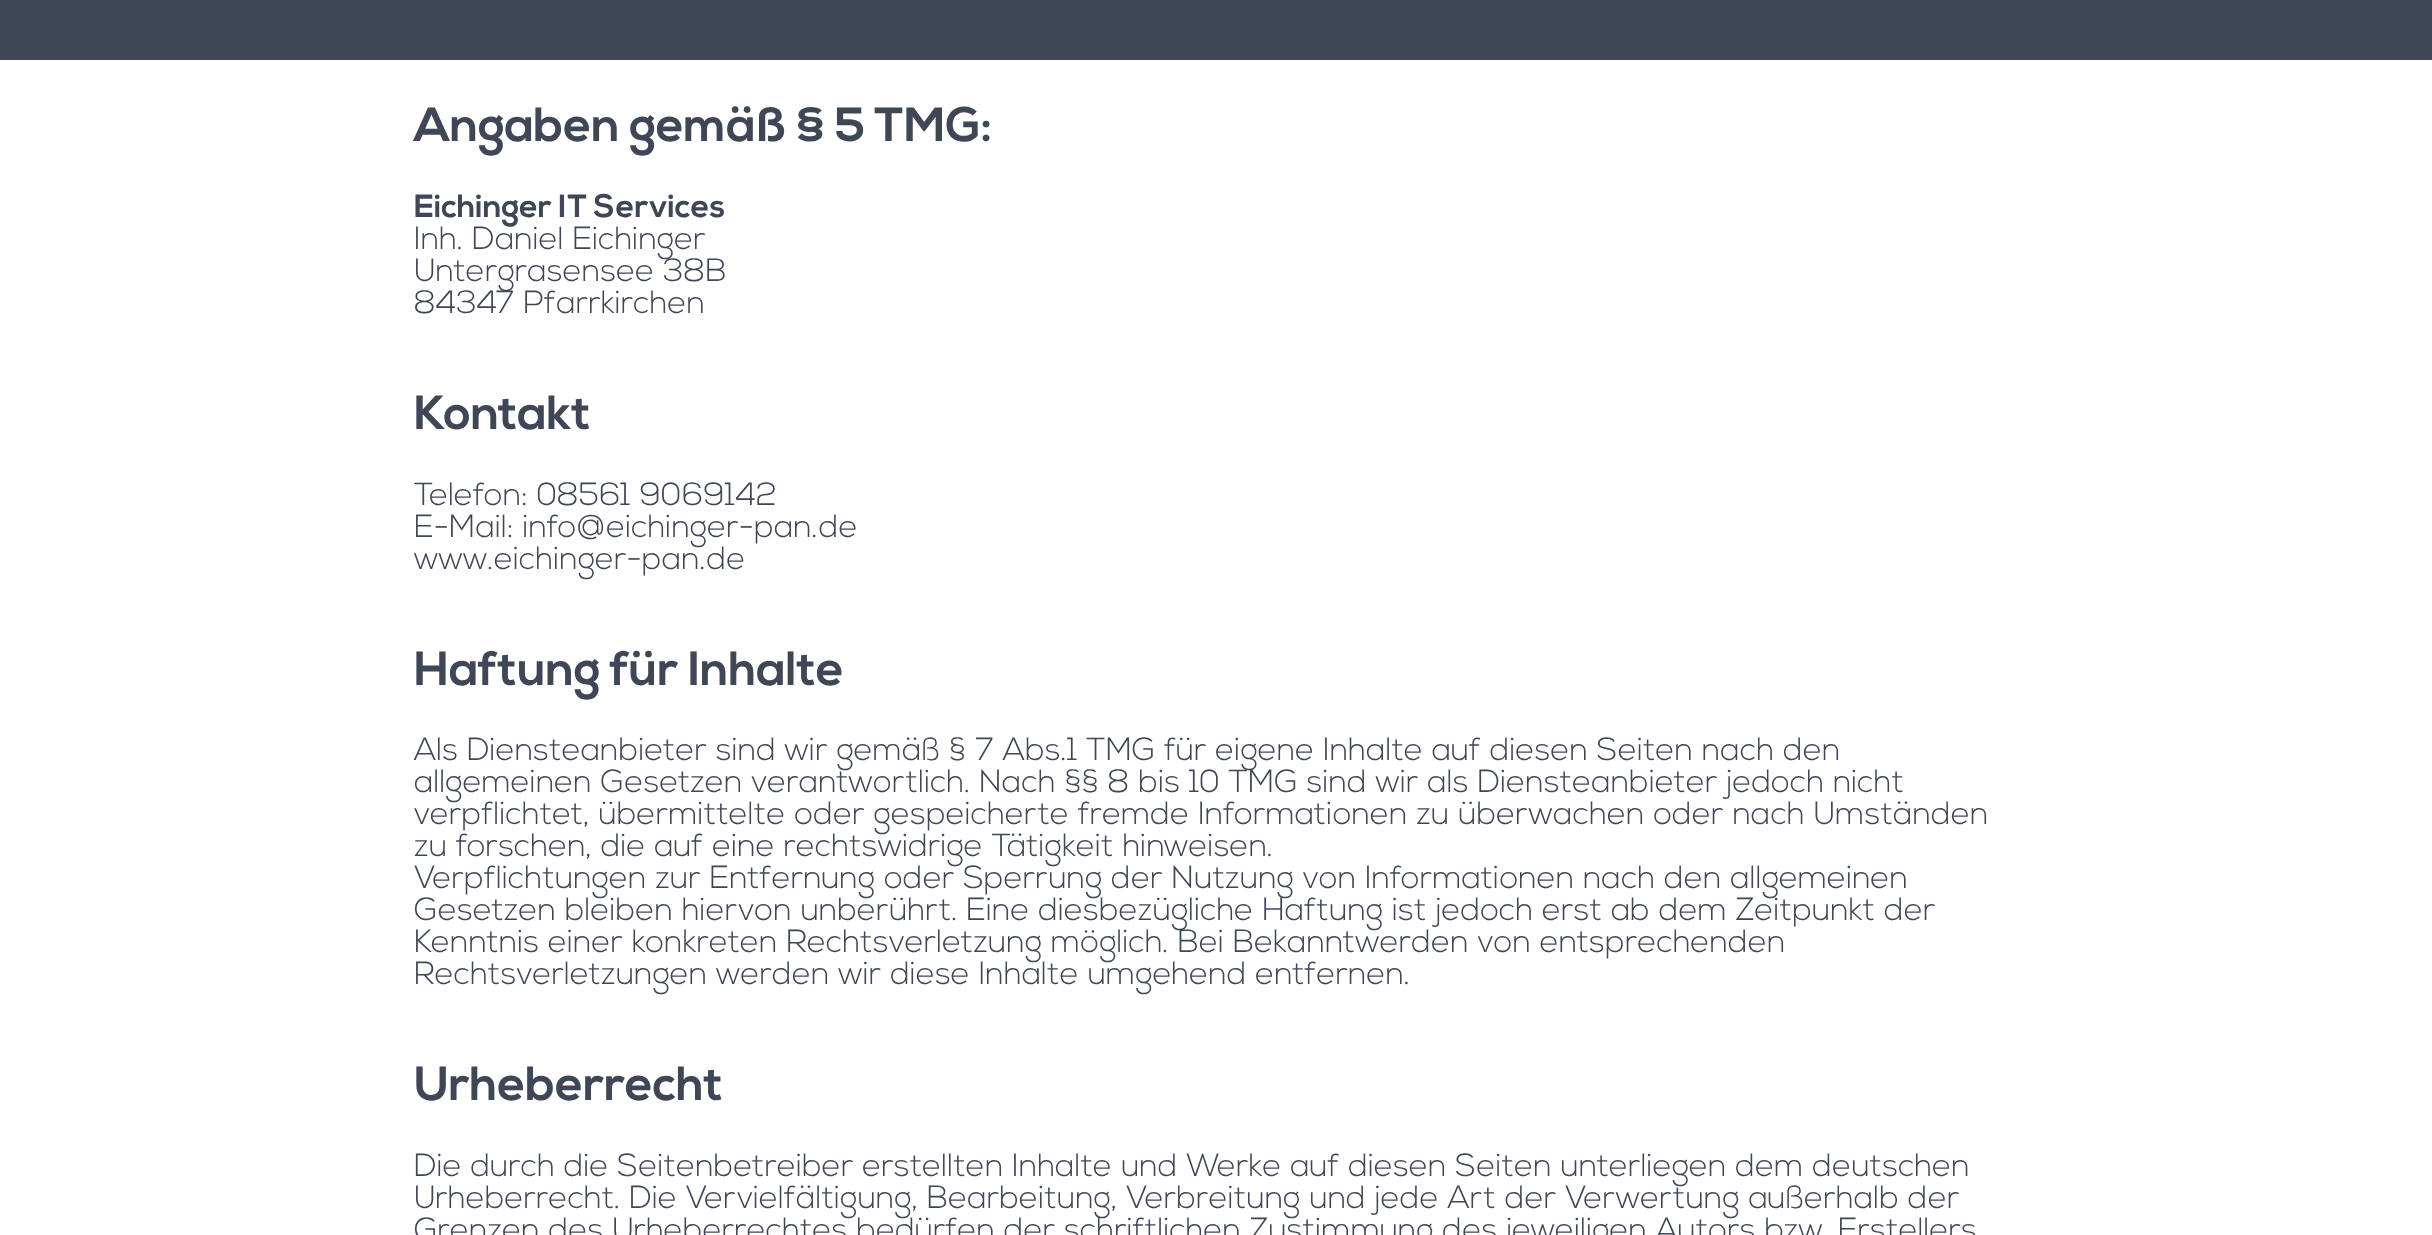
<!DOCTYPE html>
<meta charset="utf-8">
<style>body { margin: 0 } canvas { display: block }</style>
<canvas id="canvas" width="2432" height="1235"></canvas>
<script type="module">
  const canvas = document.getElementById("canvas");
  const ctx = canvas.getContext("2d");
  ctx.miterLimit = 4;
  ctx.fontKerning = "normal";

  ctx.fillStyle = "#ffffff";
  ctx.fillRect(0, 0, 2432, 1235);
  ctx.fillStyle = "#3f4756";
  ctx.fillRect(0, 0, 2432, 60);
  ctx.font = "bold 48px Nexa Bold";
  ctx.fillText("Angaben gemäß § 5 TMG:", 414, 141);
  ctx.font = "bold 32px Nexa Bold";
  ctx.fillText("Eichinger IT Services", 414, 217);
  ctx.font = "300 32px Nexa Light";
  ctx.fillText("Inh. Daniel Eichinger", 414, 249);
  ctx.fillText("Untergrasensee 38B", 414, 281);
  ctx.fillText("84347 Pfarrkirchen", 414, 313);
  ctx.font = "bold 48px Nexa Bold";
  ctx.fillText("Kontakt", 414, 429);
  ctx.font = "300 32px Nexa Light";
  ctx.fillText("Telefon: 08561 9069142", 414, 505);
  ctx.fillText("E-Mail: info@eichinger-pan.de", 414, 537);
  ctx.fillText("www.eichinger-pan.de", 414, 569);
  ctx.font = "bold 48px Nexa Bold";
  ctx.fillText("Haftung für Inhalte", 414, 685);
  ctx.font = "300 32px Nexa Light";
  ctx.fillText("Als Diensteanbieter sind wir gemäß § 7 Abs.1 TMG für eigene Inhalte auf diesen Seiten nach den", 414, 760);
  ctx.fillText("allgemeinen Gesetzen verantwortlich. Nach §§ 8 bis 10 TMG sind wir als Diensteanbieter jedoch nicht", 414, 792);
  ctx.fillText("verpflichtet, übermittelte oder gespeicherte fremde Informationen zu überwachen oder nach Umständen", 414, 824);
  ctx.fillText("zu forschen, die auf eine rechtswidrige Tätigkeit hinweisen.", 414, 856);
  ctx.fillText("Verpflichtungen zur Entfernung oder Sperrung der Nutzung von Informationen nach den allgemeinen", 414, 888);
  ctx.fillText("Gesetzen bleiben hiervon unberührt. Eine diesbezügliche Haftung ist jedoch erst ab dem Zeitpunkt der", 414, 920);
  ctx.fillText("Kenntnis einer konkreten Rechtsverletzung möglich. Bei Bekanntwerden von entsprechenden", 414, 952);
  ctx.fillText("Rechtsverletzungen werden wir diese Inhalte umgehend entfernen.", 414, 984);
  ctx.font = "bold 48px Nexa Bold";
  ctx.fillText("Urheberrecht", 414, 1100);
  ctx.font = "300 32px Nexa Light";
  ctx.fillText("Die durch die Seitenbetreiber erstellten Inhalte und Werke auf diesen Seiten unterliegen dem deutschen", 414, 1176);
  ctx.fillText("Urheberrecht. Die Vervielfältigung, Bearbeitung, Verbreitung und jede Art der Verwertung außerhalb der", 414, 1208);
  ctx.fillText("Grenzen des Urheberrechtes bedürfen der schriftlichen Zustimmung des jeweiligen Autors bzw. Erstellers", 414, 1240);
</script>
